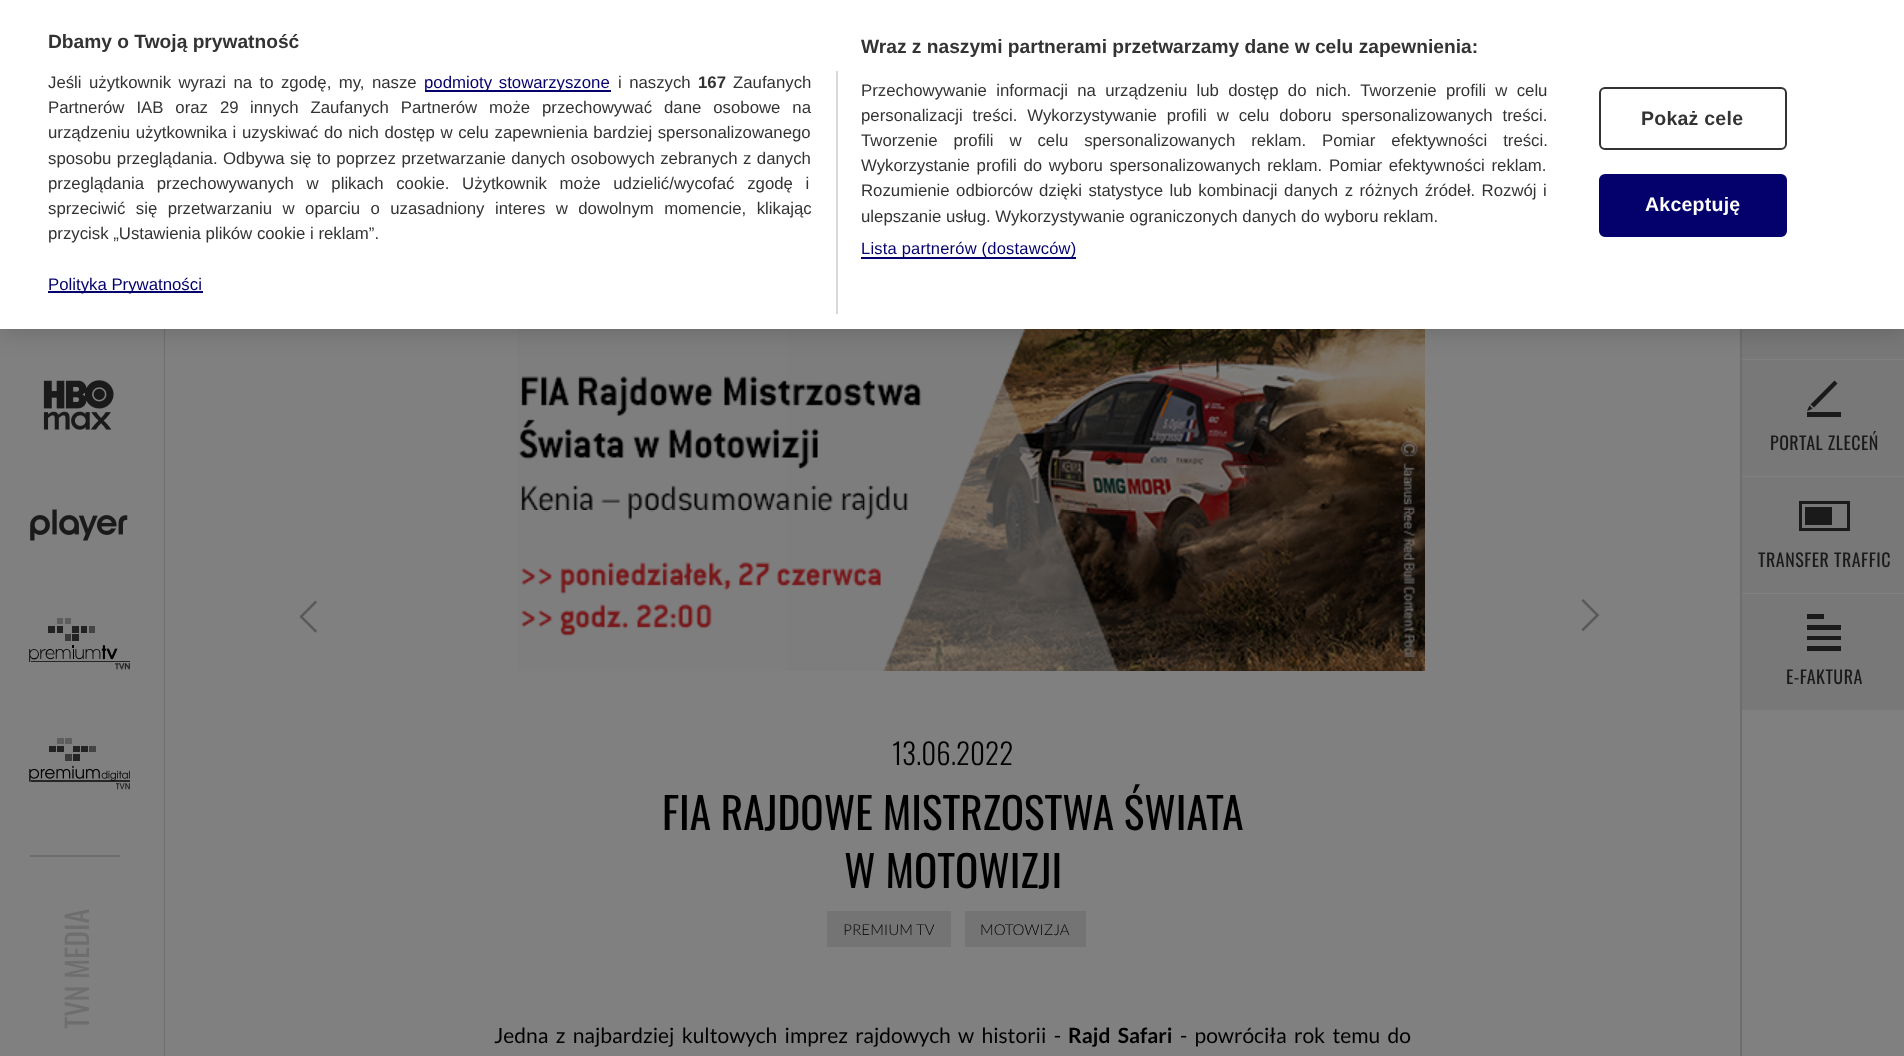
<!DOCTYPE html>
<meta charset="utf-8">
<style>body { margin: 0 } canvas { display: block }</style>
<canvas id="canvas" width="1904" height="1056"></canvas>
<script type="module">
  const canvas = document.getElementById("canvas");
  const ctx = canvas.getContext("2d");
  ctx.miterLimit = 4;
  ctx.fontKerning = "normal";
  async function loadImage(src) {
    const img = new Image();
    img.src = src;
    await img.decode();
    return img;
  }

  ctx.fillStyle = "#808080";
  ctx.fillRect(0, 0, 1904, 1056);
  ctx.fillStyle = "#6e6e6e";
  ctx.fillRect(1740, 329, 2, 727);
  ctx.fillStyle = "#787878";
  ctx.fillRect(1742, 329, 162, 30);
  ctx.fillRect(1742, 360, 162, 116);
  ctx.fillStyle = "#6e6e6e";
  ctx.fillRect(164, 329, 1, 727);
  ctx.drawImage(await loadImage("img5.png"), 517, 329, 908, 342);
  ctx.fillStyle = "rgba(0, 0, 0, 0.2)";
  ctx.filter = "blur(13.5px)";
  ctx.beginPath();
  ctx.rect(0, 0, 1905, 329);
  ctx.fill();
  ctx.filter = "none";
  ctx.fillStyle = "#ffffff";
  ctx.fillRect(0, 0, 1904, 329);
  ctx.font = "bold 19.2px Liberation Sans";
  ctx.fillStyle = "#333333";
  ctx.fillText("Dbamy o Twoją prywatność", 48, 48);
  ctx.fillText("Wraz z naszymi partnerami przetwarzamy dane w celu zapewnienia:", 861, 53);
  ctx.wordSpacing = "4.6px";
  ctx.font = "16.8px Liberation Sans";
  ctx.fillText("Przechowywanie informacji na urządzeniu lub dostęp do nich. Tworzenie profili w celu", 861, 96);
  ctx.wordSpacing = "5.25px";
  ctx.fillText("personalizacji treści. Wykorzystywanie profili w celu doboru spersonalizowanych treści.", 861, 121);
  ctx.wordSpacing = "11.25px";
  ctx.fillText("Tworzenie profili w celu spersonalizowanych reklam. Pomiar efektywności treści.", 861, 146);
  ctx.wordSpacing = "2px";
  ctx.fillText("Wykorzystanie profili do wyboru spersonalizowanych reklam. Pomiar efektywności reklam.", 861, 171);
  ctx.wordSpacing = "1.8px";
  ctx.fillText("Rozumienie odbiorców dzięki statystyce lub kombinacji danych z różnych źródeł. Rozwój i", 861, 196);
  ctx.wordSpacing = "0px";
  ctx.fillText("ulepszanie usług. Wykorzystywanie ograniczonych danych do wyboru reklam.", 861, 222);
  ctx.fillStyle = "#04006c";
  ctx.fillRect(861, 257, 215, 2);
  ctx.letterSpacing = "0.2px";
  ctx.font = "16.5px Liberation Sans";
  ctx.fillText("Lista partnerów (dostawców)", 861, 254);
  ctx.fillStyle = "#d8d8d8";
  ctx.fillRect(836, 71, 2, 243);
  ctx.letterSpacing = "0px";
  ctx.wordSpacing = "2.75px";
  ctx.font = "16.8px Liberation Sans";
  ctx.fillStyle = "#333333";
  ctx.fillText("Jeśli użytkownik wyrazi na to zgodę, my, nasze", 48, 88);
  ctx.fillStyle = "#04006c";
  ctx.fillRect(425, 90, 186, 2);
  ctx.wordSpacing = "2px";
  ctx.fillText("podmioty stowarzyszone", 424, 88);
  ctx.wordSpacing = "2.75px";
  ctx.fillStyle = "#333333";
  ctx.fillText("i naszych", 618, 88);
  ctx.wordSpacing = "0px";
  ctx.font = "bold 16.8px Liberation Sans";
  ctx.fillText("167", 698, 88);
  ctx.font = "16.8px Liberation Sans";
  ctx.fillText("Zaufanych", 733, 88);
  ctx.wordSpacing = "7.25px";
  ctx.fillText("Partnerów IAB oraz", 48, 113);
  ctx.wordSpacing = "0px";
  ctx.fillText("29", 220, 113);
  ctx.wordSpacing = "7.25px";
  ctx.fillText("innych Zaufanych Partnerów może przechowywać dane osobowe na", 250, 113);
  ctx.wordSpacing = "0.9px";
  ctx.fillText("urządzeniu użytkownika i uzyskiwać do nich dostęp w celu zapewnienia bardziej spersonalizowanego", 48, 138);
  ctx.wordSpacing = "0.75px";
  ctx.fillText("sposobu przeglądania. Odbywa się to poprzez przetwarzanie danych osobowych zebranych z danych", 48, 164);
  ctx.wordSpacing = "8px";
  ctx.fillText("przeglądania przechowywanych w plikach cookie. Użytkownik może udzielić/wycofać zgodę i", 48, 189);
  ctx.wordSpacing = "5.75px";
  ctx.fillText("sprzeciwić się przetwarzaniu w oparciu o uzasadniony interes w dowolnym momencie, klikając", 48, 214);
  ctx.wordSpacing = "0px";
  ctx.fillText("przycisk „Ustawienia plików cookie i reklam”.", 48, 239);
  ctx.fillStyle = "#04006c";
  ctx.fillRect(48, 291, 155, 2);
  ctx.fillText("Polityka Prywatności", 48, 290);
  ctx.beginPath();
  ctx.roundRect(1600, 88, 186, 61, 5);
  ctx.strokeStyle = "#333333";
  ctx.lineWidth = 2;
  ctx.stroke();
  ctx.letterSpacing = "0.25px";
  ctx.font = "bold 19.5px Liberation Sans";
  ctx.fillStyle = "#333333";
  ctx.fillText("Pokaż cele", 1641, 125);
  ctx.fillStyle = "#04006c";
  ctx.beginPath();
  ctx.roundRect(1600, 175, 186, 61, 5);
  ctx.fill();
  ctx.strokeStyle = "#04006c";
  ctx.stroke();
  ctx.fillStyle = "#ffffff";
  ctx.fillText("Akceptuję", 1645, 211);
  ctx.fillStyle = "#1a1a1a";
  ctx.fillRect(1807, 412, 34, 5);
  ctx.beginPath();
  ctx.moveTo(1807, 411);
  ctx.lineTo(1809.5, 405.5);
  ctx.lineTo(1812.5, 408.5);
  ctx.lineTo(1810, 410);
  ctx.closePath();
  ctx.fill("evenodd");
  ctx.beginPath();
  ctx.moveTo(1810.5, 404.5);
  ctx.lineTo(1834.5, 380.5);
  ctx.lineTo(1837.5, 383.5);
  ctx.lineTo(1814, 407.5);
  ctx.closePath();
  ctx.fill("evenodd");
  ctx.letterSpacing = "0.5px";
  ctx.font = "18px Oswald";
  ctx.fillText("PORTAL ZLECEŃ", 1770, 450);
  ctx.fillStyle = "#787878";
  ctx.fillRect(1742, 477, 162, 116);
  ctx.fillStyle = "#1a1a1a";
  ctx.beginPath();
  ctx.moveTo(1799, 501);
  ctx.lineTo(1799, 531);
  ctx.lineTo(1850, 531);
  ctx.lineTo(1850, 501);
  ctx.closePath();
  ctx.moveTo(1847, 528);
  ctx.lineTo(1802, 528);
  ctx.lineTo(1802, 504);
  ctx.lineTo(1847, 504);
  ctx.closePath();
  ctx.fill("evenodd");
  ctx.fillRect(1805, 507, 27, 18);
  ctx.fillText("TRANSFER TRAFFIC", 1758, 567);
  ctx.fillStyle = "#787878";
  ctx.fillRect(1742, 594, 162, 116);
  ctx.fillStyle = "#1a1a1a";
  ctx.fillRect(1807, 646, 34, 5);
  ctx.fillRect(1807, 636, 34, 4);
  ctx.fillRect(1807, 625, 34, 5);
  ctx.fillRect(1807, 614, 17, 5);
  ctx.fillText("E-FAKTURA", 1786, 684);
  ctx.drawImage(await loadImage("img1.png"), 43, 380, 71, 50);
  ctx.drawImage(await loadImage("img2.png"), 30, 509, 98, 32);
  ctx.drawImage(await loadImage("img3.png"), 29, 618, 101, 52);
  ctx.drawImage(await loadImage("img4.png"), 29, 738, 101, 52);
  ctx.fillStyle = "#6e6e6e";
  ctx.fillRect(30, 855, 90, 2);
  ctx.letterSpacing = "0px";
  ctx.font = "30px Oswald";
  ctx.save();
  ctx.translate(89, 1029);
  ctx.rotate(-90 * Math.PI / 180);
  ctx.fillText("TVN MEDIA", 0, 0);
  ctx.restore();
  ctx.drawImage(await loadImage("img6.png"), 300, 600, 17, 33);
  ctx.drawImage(await loadImage("img7.png"), 1581, 599, 19, 32);
  ctx.font = "300 29px Oswald";
  ctx.fillStyle = "#000000";
  ctx.fillText("13.06.2022", 892, 765);
  ctx.font = "43.25px Oswald";
  ctx.fillText("FIA RAJDOWE MISTRZOSTWA ŚWIATA", 662, 830);
  ctx.fillText("W MOTOWIZJI", 844, 888);
  ctx.fillStyle = "#747474";
  ctx.fillRect(827, 911, 124, 36);
  ctx.font = "300 15px Lato";
  ctx.fillStyle = "#000000";
  ctx.fillText("PREMIUM TV", 843, 935);
  ctx.fillStyle = "#747474";
  ctx.fillRect(965, 911, 121, 36);
  ctx.fillStyle = "#000000";
  ctx.fillText("MOTOWIZJA", 980, 935);
  ctx.wordSpacing = "3.25px";
  ctx.font = "21px Lato";
  ctx.fillText("Jedna z najbardziej kultowych imprez rajdowych w historii -", 494, 1043);
  ctx.font = "bold 21px Lato";
  ctx.fillText("Rajd Safari", 1068, 1043);
  ctx.font = "21px Lato";
  ctx.fillText("- powróciła rok temu do", 1180, 1043);
</script>
